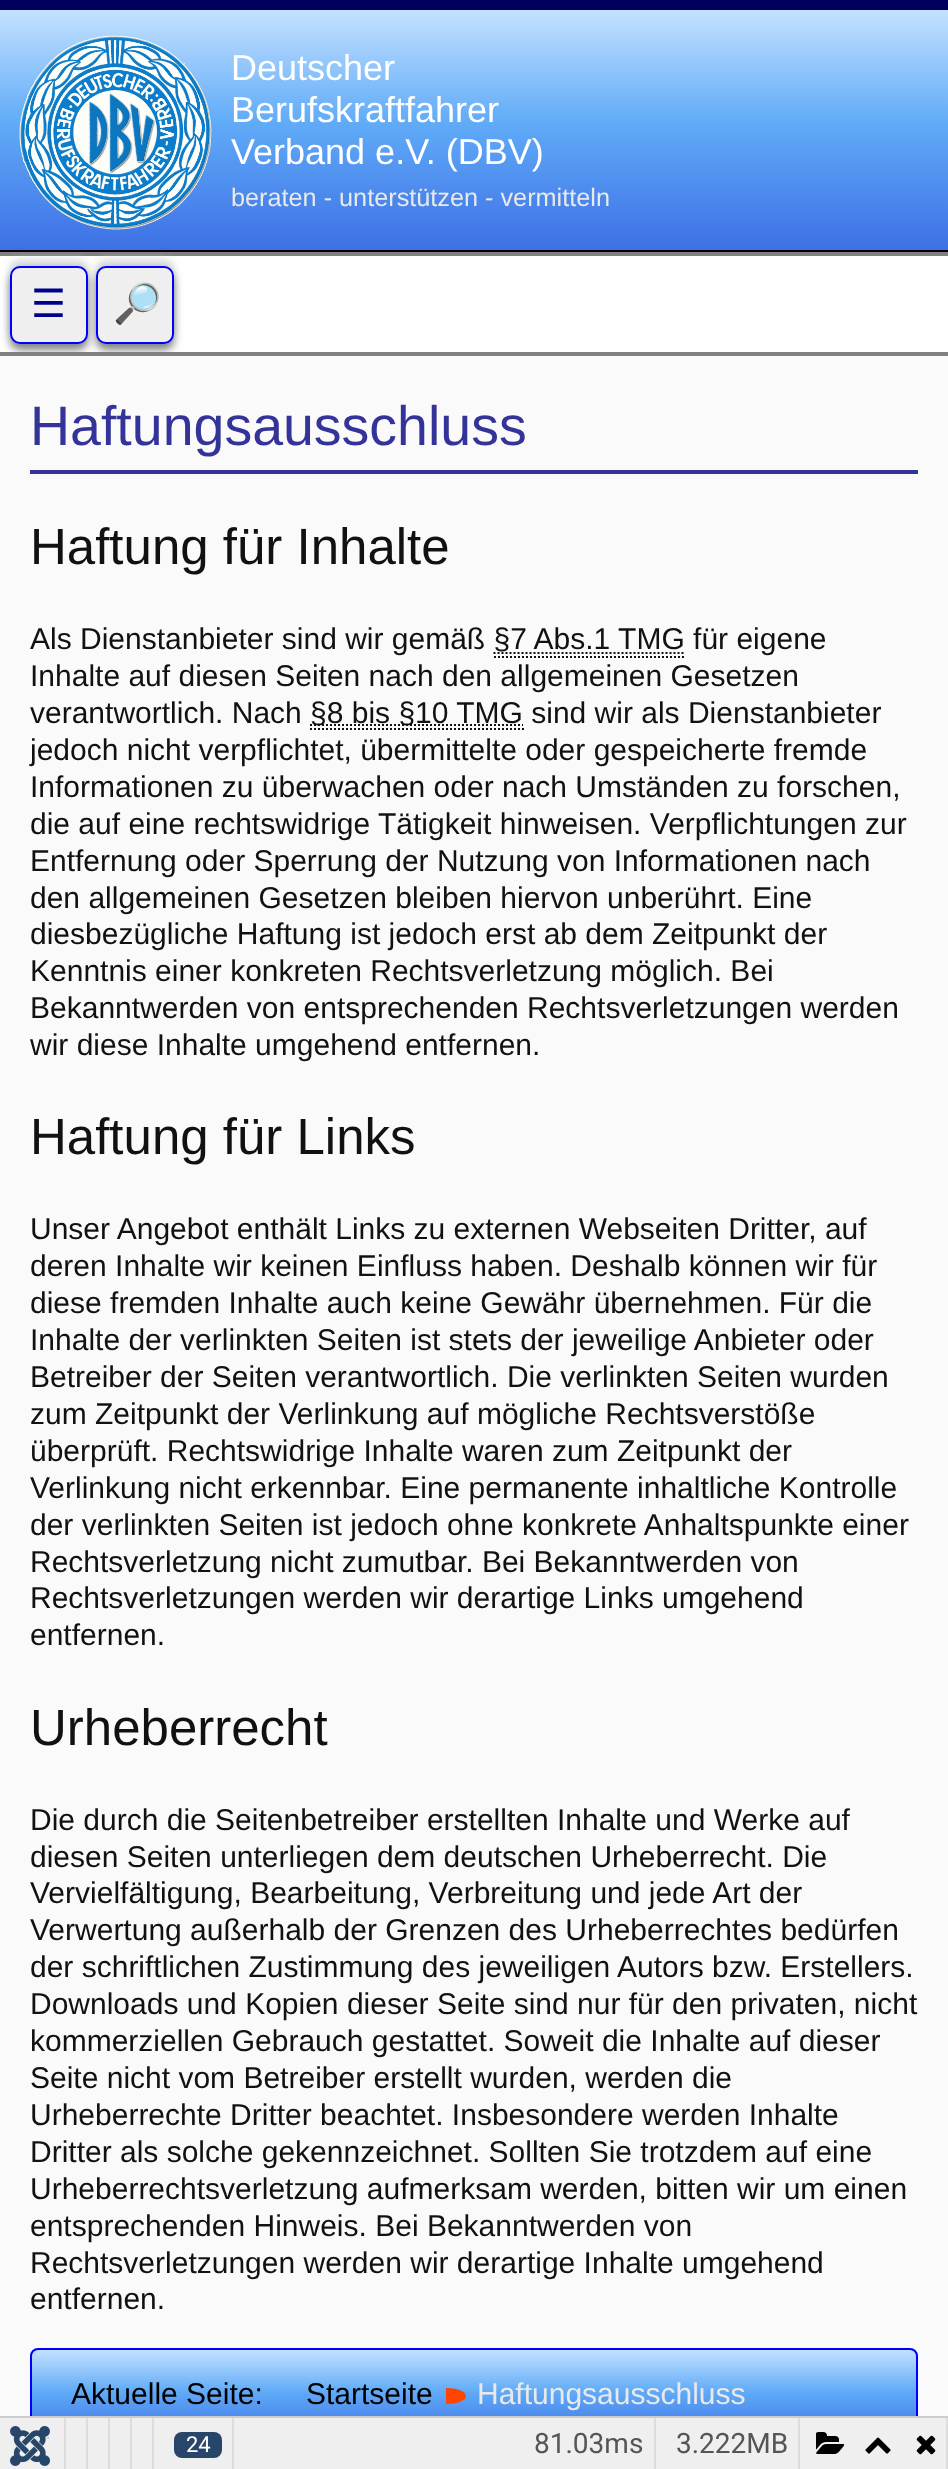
<!DOCTYPE html>
<meta charset="utf-8">
<style>body { margin: 0 } canvas { display: block }</style>
<canvas id="canvas" width="948" height="2469"></canvas>
<script type="module">
  const canvas = document.getElementById("canvas");
  const ctx = canvas.getContext("2d");
  ctx.miterLimit = 4;
  ctx.fontKerning = "normal";
  async function loadImage(src) {
    const img = new Image();
    img.src = src;
    await img.decode();
    return img;
  }
  let gradient;

  ctx.fillStyle = "#ffffff";
  ctx.fillRect(0, 0, 948, 2469);
  gradient = ctx.createLinearGradient(474, 10, 474, 250);
  gradient.addColorStop(0, "#c4e1ff");
  gradient.addColorStop(0.47, "#60abf8");
  gradient.addColorStop(1, "#3d70e5");
  ctx.fillStyle = gradient;
  ctx.fillRect(0, 10, 948, 240);
  ctx.fillStyle = "#00005d";
  ctx.fillRect(0, 0, 948, 10);
  ctx.fillStyle = "#000000";
  ctx.fillRect(0, 250, 948, 2);
  ctx.drawImage(await loadImage("img1.png"), 19, 35, 193, 195);
  ctx.font = "36px Liberation Sans";
  ctx.fillStyle = "#ffffff";
  ctx.fillText("Deutscher", 231, 80);
  ctx.fillText("Berufskraftfahrer", 231, 122);
  ctx.fillText("Verband e.V. (DBV)", 231, 164);
  ctx.font = "25.25px Liberation Sans";
  ctx.fillStyle = "#e9e9e9";
  ctx.fillText("beraten - unterstützen - vermitteln", 231, 206);
  ctx.fillStyle = "#808080";
  ctx.fillRect(0, 252, 948, 4);
  ctx.fillRect(0, 352, 948, 4);
  ctx.fillStyle = "#d3d3d3";
  ctx.filter = "blur(4px)";
  ctx.beginPath();
  ctx.roundRect(10, 260, 78, 78, 10);
  ctx.fill();
  ctx.filter = "none";
  ctx.fillStyle = "#808080";
  ctx.filter = "blur(4px)";
  ctx.beginPath();
  ctx.roundRect(10, 272, 78, 78, 10);
  ctx.fill();
  ctx.filter = "none";
  ctx.fillStyle = "#efefef";
  ctx.beginPath();
  ctx.roundRect(11, 267, 76, 76, 9);
  ctx.fill();
  ctx.strokeStyle = "#0000ff";
  ctx.lineWidth = 2;
  ctx.stroke();
  ctx.font = "39px DejaVu Sans";
  ctx.fillStyle = "#00008b";
  ctx.fillText("☰", 31, 317);
  ctx.fillStyle = "#d3d3d3";
  ctx.filter = "blur(4px)";
  ctx.beginPath();
  ctx.roundRect(96, 260, 78, 78, 10);
  ctx.fill();
  ctx.filter = "none";
  ctx.fillStyle = "#808080";
  ctx.filter = "blur(4px)";
  ctx.beginPath();
  ctx.roundRect(96, 272, 78, 78, 10);
  ctx.fill();
  ctx.filter = "none";
  ctx.fillStyle = "#efefef";
  ctx.beginPath();
  ctx.roundRect(97, 267, 76, 76, 9);
  ctx.fill();
  ctx.stroke();
  ctx.font = "39px Noto Color Emoji";
  ctx.fillStyle = "#00008b";
  ctx.fillText("🔎", 113, 317);
  ctx.fillStyle = "#fafafa";
  ctx.fillRect(0, 356, 948, 2060);
  ctx.fillStyle = "#333399";
  ctx.fillRect(30, 470, 888, 4);
  ctx.font = "55.5px Liberation Sans";
  ctx.fillText("Haftungsausschluss", 30, 445);
  ctx.font = "51px Liberation Sans";
  ctx.fillStyle = "#111111";
  ctx.fillText("Haftung für Inhalte", 30, 564);
  ctx.font = "30px Liberation Sans";
  ctx.fillText("Als Dienstanbieter sind wir gemäß §7 Abs.1 TMG für eigene", 30, 649);
  ctx.beginPath();
  ctx.moveTo(493.5, 653);
  ctx.lineTo(685, 653);
  ctx.strokeStyle = "#111111";
  ctx.setLineDash([2, 2]);
  ctx.stroke();
  ctx.beginPath();
  ctx.moveTo(494, 657);
  ctx.lineTo(684, 657);
  ctx.stroke();
  ctx.fillText("Inhalte auf diesen Seiten nach den allgemeinen Gesetzen", 30, 686);
  ctx.fillText("verantwortlich. Nach", 30, 723);
  ctx.beginPath();
  ctx.moveTo(310, 725);
  ctx.lineTo(523, 725);
  ctx.stroke();
  ctx.fillText("§8 bis §10 TMG sind wir als Dienstanbieter", 310, 723);
  ctx.beginPath();
  ctx.moveTo(310, 729);
  ctx.lineTo(524, 729);
  ctx.stroke();
  ctx.fillText("jedoch nicht verpflichtet, übermittelte oder gespeicherte fremde", 30, 760);
  ctx.fillText("Informationen zu überwachen oder nach Umständen zu forschen,", 30, 797);
  ctx.fillText("die auf eine rechtswidrige Tätigkeit hinweisen. Verpflichtungen zur", 30, 834);
  ctx.fillText("Entfernung oder Sperrung der Nutzung von Informationen nach", 30, 871);
  ctx.fillText("den allgemeinen Gesetzen bleiben hiervon unberührt. Eine", 30, 908);
  ctx.fillText("diesbezügliche Haftung ist jedoch erst ab dem Zeitpunkt der", 30, 944);
  ctx.fillText("Kenntnis einer konkreten Rechtsverletzung möglich. Bei", 30, 981);
  ctx.fillText("Bekanntwerden von entsprechenden Rechtsverletzungen werden", 30, 1018);
  ctx.fillText("wir diese Inhalte umgehend entfernen.", 30, 1055);
  ctx.font = "51px Liberation Sans";
  ctx.fillText("Haftung für Links", 30, 1154);
  ctx.font = "30px Liberation Sans";
  ctx.fillText("Unser Angebot enthält Links zu externen Webseiten Dritter, auf", 30, 1239);
  ctx.fillText("deren Inhalte wir keinen Einfluss haben. Deshalb können wir für", 30, 1276);
  ctx.fillText("diese fremden Inhalte auch keine Gewähr übernehmen. Für die", 30, 1313);
  ctx.fillText("Inhalte der verlinkten Seiten ist stets der jeweilige Anbieter oder", 30, 1350);
  ctx.fillText("Betreiber der Seiten verantwortlich. Die verlinkten Seiten wurden", 30, 1387);
  ctx.fillText("zum Zeitpunkt der Verlinkung auf mögliche Rechtsverstöße", 30, 1424);
  ctx.fillText("überprüft. Rechtswidrige Inhalte waren zum Zeitpunkt der", 30, 1461);
  ctx.fillText("Verlinkung nicht erkennbar. Eine permanente inhaltliche Kontrolle", 30, 1498);
  ctx.fillText("der verlinkten Seiten ist jedoch ohne konkrete Anhaltspunkte einer", 30, 1535);
  ctx.fillText("Rechtsverletzung nicht zumutbar. Bei Bekanntwerden von", 30, 1572);
  ctx.fillText("Rechtsverletzungen werden wir derartige Links umgehend", 30, 1608);
  ctx.fillText("entfernen.", 30, 1645);
  ctx.font = "51px Liberation Sans";
  ctx.fillText("Urheberrecht", 30, 1745);
  ctx.font = "30px Liberation Sans";
  ctx.fillText("Die durch die Seitenbetreiber erstellten Inhalte und Werke auf", 30, 1830);
  ctx.fillText("diesen Seiten unterliegen dem deutschen Urheberrecht. Die", 30, 1867);
  ctx.fillText("Vervielfältigung, Bearbeitung, Verbreitung und jede Art der", 30, 1903);
  ctx.fillText("Verwertung außerhalb der Grenzen des Urheberrechtes bedürfen", 30, 1940);
  ctx.fillText("der schriftlichen Zustimmung des jeweiligen Autors bzw. Erstellers.", 30, 1977);
  ctx.fillText("Downloads und Kopien dieser Seite sind nur für den privaten, nicht", 30, 2014);
  ctx.fillText("kommerziellen Gebrauch gestattet. Soweit die Inhalte auf dieser", 30, 2051);
  ctx.fillText("Seite nicht vom Betreiber erstellt wurden, werden die", 30, 2088);
  ctx.fillText("Urheberrechte Dritter beachtet. Insbesondere werden Inhalte", 30, 2125);
  ctx.fillText("Dritter als solche gekennzeichnet. Sollten Sie trotzdem auf eine", 30, 2162);
  ctx.fillText("Urheberrechtsverletzung aufmerksam werden, bitten wir um einen", 30, 2199);
  ctx.fillText("entsprechenden Hinweis. Bei Bekanntwerden von", 30, 2236);
  ctx.fillText("Rechtsverletzungen werden wir derartige Inhalte umgehend", 30, 2273);
  ctx.fillText("entfernen.", 30, 2309);
  ctx.save();
  ctx.beginPath();
  ctx.roundRect(30, 2348, 888, 92, 8);
  ctx.clip();
  gradient = ctx.createLinearGradient(474, 2350, 474, 2438);
  gradient.addColorStop(0, "#c4e1ff");
  gradient.addColorStop(0.47, "#60abf8");
  gradient.addColorStop(1, "#3d70e5");
  ctx.fillStyle = gradient;
  ctx.fillRect(30, 2350, 888, 66);
  ctx.restore();
  ctx.beginPath();
  ctx.roundRect(31, 2349, 886, 90, 7);
  ctx.strokeStyle = "#0000ff";
  ctx.setLineDash([]);
  ctx.stroke();
  ctx.fillStyle = "#000000";
  ctx.fillText("Aktuelle Seite:", 71, 2404);
  ctx.fillText("Startseite", 306, 2404);
  ctx.fillStyle = "#ff4500";
  ctx.beginPath();
  ctx.moveTo(446, 2388);
  ctx.bezierCurveTo(457, 2388, 466, 2391.5, 466, 2396);
  ctx.bezierCurveTo(466, 2400.5, 457, 2404, 446, 2404);
  ctx.closePath();
  ctx.fill();
  ctx.fillStyle = "#e9e9e9";
  ctx.fillText("Haftungsausschluss", 477, 2404);
  ctx.fillStyle = "#cccccc";
  ctx.fillRect(0, 2416, 948, 2);
  ctx.fillStyle = "#efefef";
  ctx.fillRect(66, 2418, 880, 51);
  ctx.fillRect(0, 2418, 64, 51);
  ctx.drawImage(await loadImage("img2.png"), 10, 2426, 40, 40);
  ctx.fillStyle = "#dddddd";
  ctx.fillRect(64, 2418, 2, 51);
  ctx.fillRect(86, 2418, 2, 51);
  ctx.fillRect(108, 2418, 2, 51);
  ctx.fillRect(130, 2418, 2, 51);
  ctx.fillRect(152, 2418, 2, 51);
  ctx.fillRect(232, 2418, 2, 51);
  ctx.fillStyle = "#28466a";
  ctx.beginPath();
  ctx.roundRect(174, 2432, 48, 26, 8);
  ctx.fill();
  ctx.font = "22px Roboto";
  ctx.fillStyle = "#ffffff";
  ctx.fillText("24", 186, 2452);
  ctx.fillStyle = "#dddddd";
  ctx.fillRect(654, 2418, 2, 51);
  ctx.font = "28px Roboto";
  ctx.fillStyle = "#555555";
  ctx.fillText("81.03ms", 534, 2453);
  ctx.fillStyle = "#dddddd";
  ctx.fillRect(798, 2418, 2, 51);
  ctx.fillStyle = "#555555";
  ctx.fillText("3.222MB", 676, 2453);
  ctx.drawImage(await loadImage("img3.png"), 816, 2432, 28, 22);
  ctx.drawImage(await loadImage("img4.png"), 865, 2437, 26, 17);
  ctx.drawImage(await loadImage("img5.png"), 916, 2435, 20, 20);
  ctx.fillStyle = "#dddddd";
  ctx.fillRect(946, 2418, 2, 51);
</script>
